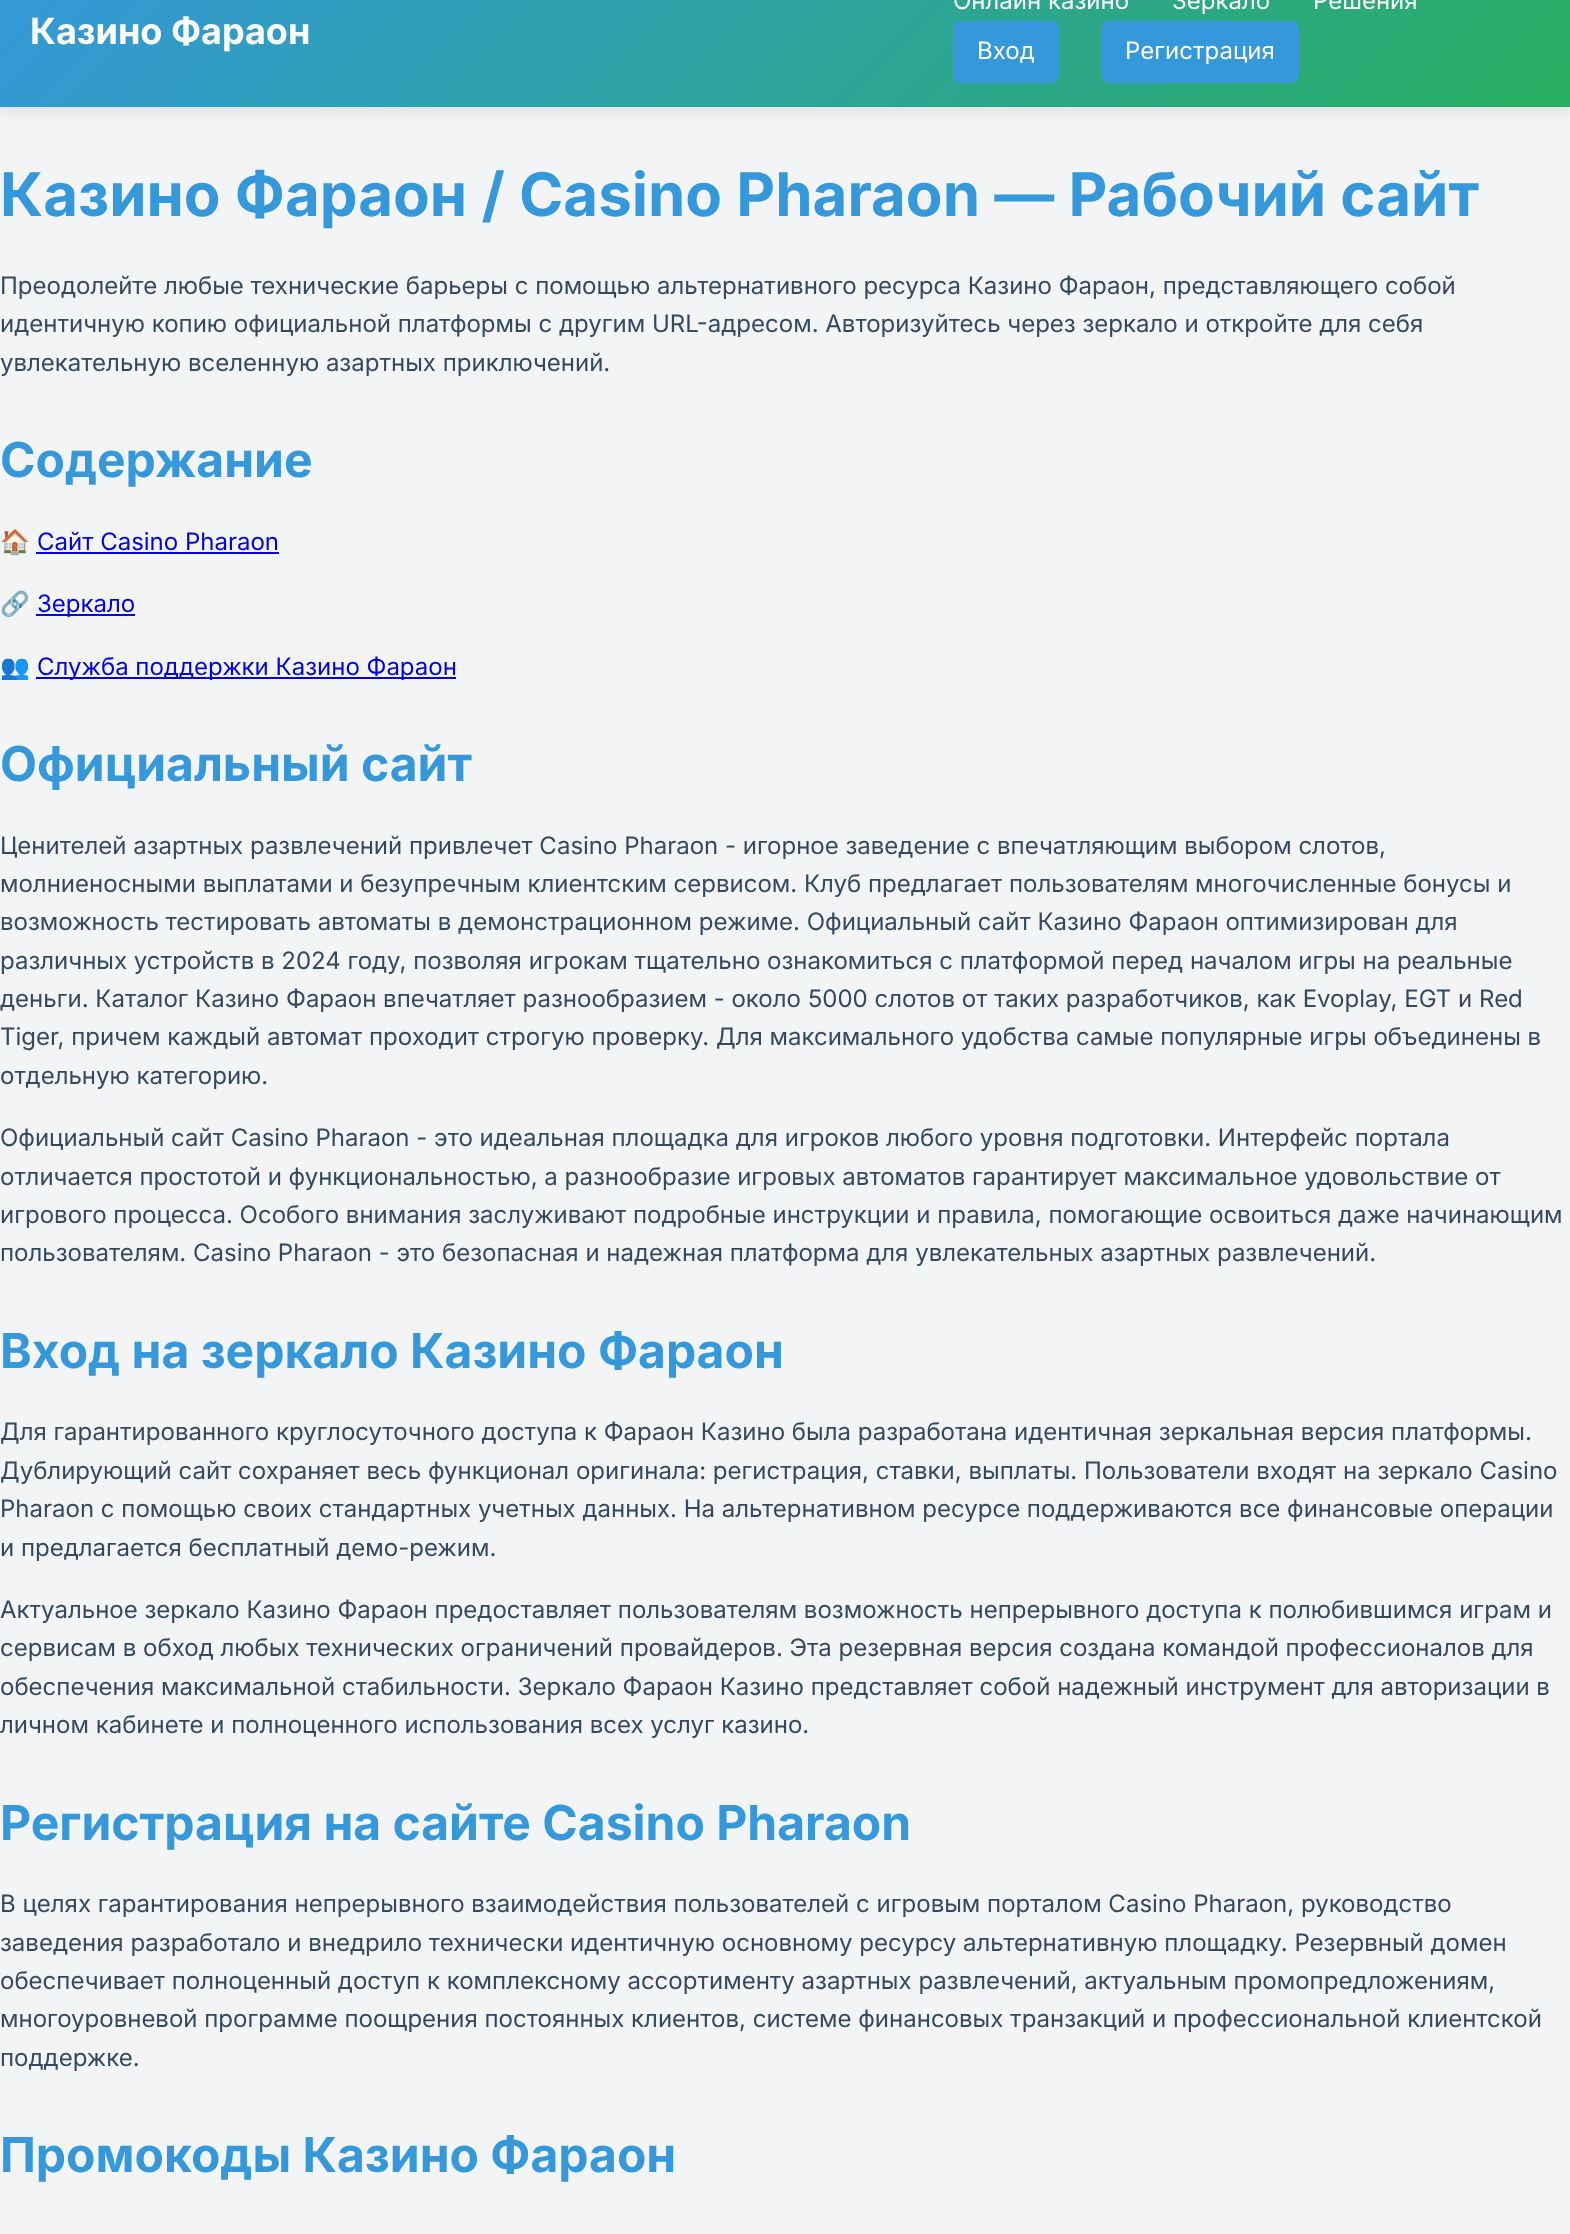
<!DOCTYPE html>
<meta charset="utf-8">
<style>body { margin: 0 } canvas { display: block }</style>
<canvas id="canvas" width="1570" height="2234"></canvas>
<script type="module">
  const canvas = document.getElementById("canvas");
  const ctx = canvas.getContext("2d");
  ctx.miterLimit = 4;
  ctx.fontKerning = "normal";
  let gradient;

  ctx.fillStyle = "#f3f4f6";
  ctx.fillRect(0, 0, 1570, 2234);
  ctx.fillStyle = "rgba(0, 0, 0, 0.1)";
  ctx.filter = "blur(7.5px)";
  ctx.beginPath();
  ctx.rect(0, -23, 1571, 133);
  ctx.fill();
  ctx.filter = "none";
  gradient = ctx.createLinearGradient(355, -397, 1215, 462);
  gradient.addColorStop(0, "#3498db");
  gradient.addColorStop(1, "#27ae60");
  ctx.fillStyle = gradient;
  ctx.fillRect(0, 0, 1570, 107);
  ctx.font = "bold 36px Inter";
  ctx.fillStyle = "#ffffff";
  ctx.fillText("Казино Фараон", 30, 44);
  ctx.font = "24px Inter";
  ctx.fillText("Онлайн казино", 953, 9);
  ctx.fillText("Зеркало", 1172, 9);
  ctx.fillText("Решения", 1313, 9);
  ctx.fillStyle = "#3498db";
  ctx.beginPath();
  ctx.roundRect(953, 21, 106, 62, 8);
  ctx.fill();
  ctx.fillStyle = "#ffffff";
  ctx.fillText("Вход", 977, 59);
  ctx.fillStyle = "#3498db";
  ctx.beginPath();
  ctx.roundRect(1101, 21, 198, 62, 8);
  ctx.fill();
  ctx.fillStyle = "#ffffff";
  ctx.fillText("Регистрация", 1125, 59);
  ctx.font = "bold 60px Inter";
  ctx.fillStyle = "#3498db";
  ctx.fillText("Казино Фараон / Casino Pharaon — Рабочий сайт", 0, 216);
  ctx.font = "24px Inter";
  ctx.fillStyle = "#34495e";
  ctx.fillText("Преодолейте любые технические барьеры с помощью альтернативного ресурса Казино Фараон, представляющего собой", 0, 294);
  ctx.fillText("идентичную копию официальной платформы с другим URL-адресом. Авторизуйтесь через зеркало и откройте для себя", 0, 332);
  ctx.fillText("увлекательную вселенную азартных приключений.", 0, 371);
  ctx.font = "bold 48px Inter";
  ctx.fillStyle = "#3498db";
  ctx.fillText("Содержание", 0, 477);
  ctx.font = "24px Noto Color Emoji";
  ctx.fillStyle = "#34495e";
  ctx.fillText("🏠", 0, 550);
  ctx.font = "24px Inter";
  ctx.fillStyle = "#0000ee";
  ctx.fillText("Сайт Casino Pharaon", 37, 550);
  ctx.fillRect(36, 552, 243, 2);
  ctx.font = "24px Noto Color Emoji";
  ctx.fillStyle = "#34495e";
  ctx.fillText("🔗", 0, 612);
  ctx.fillStyle = "#0000ee";
  ctx.fillRect(36, 614, 99, 2);
  ctx.font = "24px Inter";
  ctx.fillText("Зеркало", 37, 612);
  ctx.font = "24px Noto Color Emoji";
  ctx.fillStyle = "#34495e";
  ctx.fillText("👥", 0, 675);
  ctx.fillStyle = "#0000ee";
  ctx.fillRect(36, 677, 420, 2);
  ctx.font = "24px Inter";
  ctx.fillText("Служба поддержки Казино Фараон", 37, 675);
  ctx.font = "bold 48px Inter";
  ctx.fillStyle = "#3498db";
  ctx.fillText("Официальный сайт", 0, 781);
  ctx.font = "24px Inter";
  ctx.fillStyle = "#34495e";
  ctx.fillText("Ценителей азартных развлечений привлечет Casino Pharaon - игорное заведение с впечатляющим выбором слотов,", 0, 854);
  ctx.fillText("молниеносными выплатами и безупречным клиентским сервисом. Клуб предлагает пользователям многочисленные бонусы и", 0, 892);
  ctx.fillText("возможность тестировать автоматы в демонстрационном режиме. Официальный сайт Казино Фараон оптимизирован для", 0, 930);
  ctx.fillText("различных устройств в 2024 году, позволяя игрокам тщательно ознакомиться с платформой перед началом игры на реальные", 0, 969);
  ctx.fillText("деньги. Каталог Казино Фараон впечатляет разнообразием - около 5000 слотов от таких разработчиков, как Evoplay, EGT и Red", 0, 1007);
  ctx.fillText("Tiger, причем каждый автомат проходит строгую проверку. Для максимального удобства самые популярные игры объединены в", 0, 1045);
  ctx.fillText("отдельную категорию.", 0, 1084);
  ctx.fillText("Официальный сайт Casino Pharaon - это идеальная площадка для игроков любого уровня подготовки. Интерфейс портала", 0, 1146);
  ctx.fillText("отличается простотой и функциональностью, а разнообразие игровых автоматов гарантирует максимальное удовольствие от", 0, 1185);
  ctx.fillText("игрового процесса. Особого внимания заслуживают подробные инструкции и правила, помогающие освоиться даже начинающим", 0, 1223);
  ctx.fillText("пользователям. Casino Pharaon - это безопасная и надежная платформа для увлекательных азартных развлечений.", 0, 1261);
  ctx.font = "bold 48px Inter";
  ctx.fillStyle = "#3498db";
  ctx.fillText("Вход на зеркало Казино Фараон", 0, 1368);
  ctx.font = "24px Inter";
  ctx.fillStyle = "#34495e";
  ctx.fillText("Для гарантированного круглосуточного доступа к Фараон Казино была разработана идентичная зеркальная версия платформы.", 0, 1440);
  ctx.fillText("Дублирующий сайт сохраняет весь функционал оригинала: регистрация, ставки, выплаты. Пользователи входят на зеркало Casino", 0, 1479);
  ctx.fillText("Pharaon с помощью своих стандартных учетных данных. На альтернативном ресурсе поддерживаются все финансовые операции", 0, 1517);
  ctx.fillText("и предлагается бесплатный демо-режим.", 0, 1556);
  ctx.fillText("Актуальное зеркало Казино Фараон предоставляет пользователям возможность непрерывного доступа к полюбившимся играм и", 0, 1618);
  ctx.fillText("сервисам в обход любых технических ограничений провайдеров. Эта резервная версия создана командой профессионалов для", 0, 1656);
  ctx.fillText("обеспечения максимальной стабильности. Зеркало Фараон Казино представляет собой надежный инструмент для авторизации в", 0, 1695);
  ctx.fillText("личном кабинете и полноценного использования всех услуг казино.", 0, 1733);
  ctx.font = "bold 48px Inter";
  ctx.fillStyle = "#3498db";
  ctx.fillText("Регистрация на сайте Casino Pharaon", 0, 1840);
  ctx.font = "24px Inter";
  ctx.fillStyle = "#34495e";
  ctx.fillText("В целях гарантирования непрерывного взаимодействия пользователей с игровым порталом Casino Pharaon, руководство", 0, 1912);
  ctx.fillText("заведения разработало и внедрило технически идентичную основному ресурсу альтернативную площадку. Резервный домен", 0, 1951);
  ctx.fillText("обеспечивает полноценный доступ к комплексному ассортименту азартных развлечений, актуальным промопредложениям,", 0, 1989);
  ctx.fillText("многоуровневой программе поощрения постоянных клиентов, системе финансовых транзакций и профессиональной клиентской", 0, 2027);
  ctx.fillText("поддержке.", 0, 2066);
  ctx.font = "bold 48px Inter";
  ctx.fillStyle = "#3498db";
  ctx.fillText("Промокоды Казино Фараон", 0, 2172);
</script>
